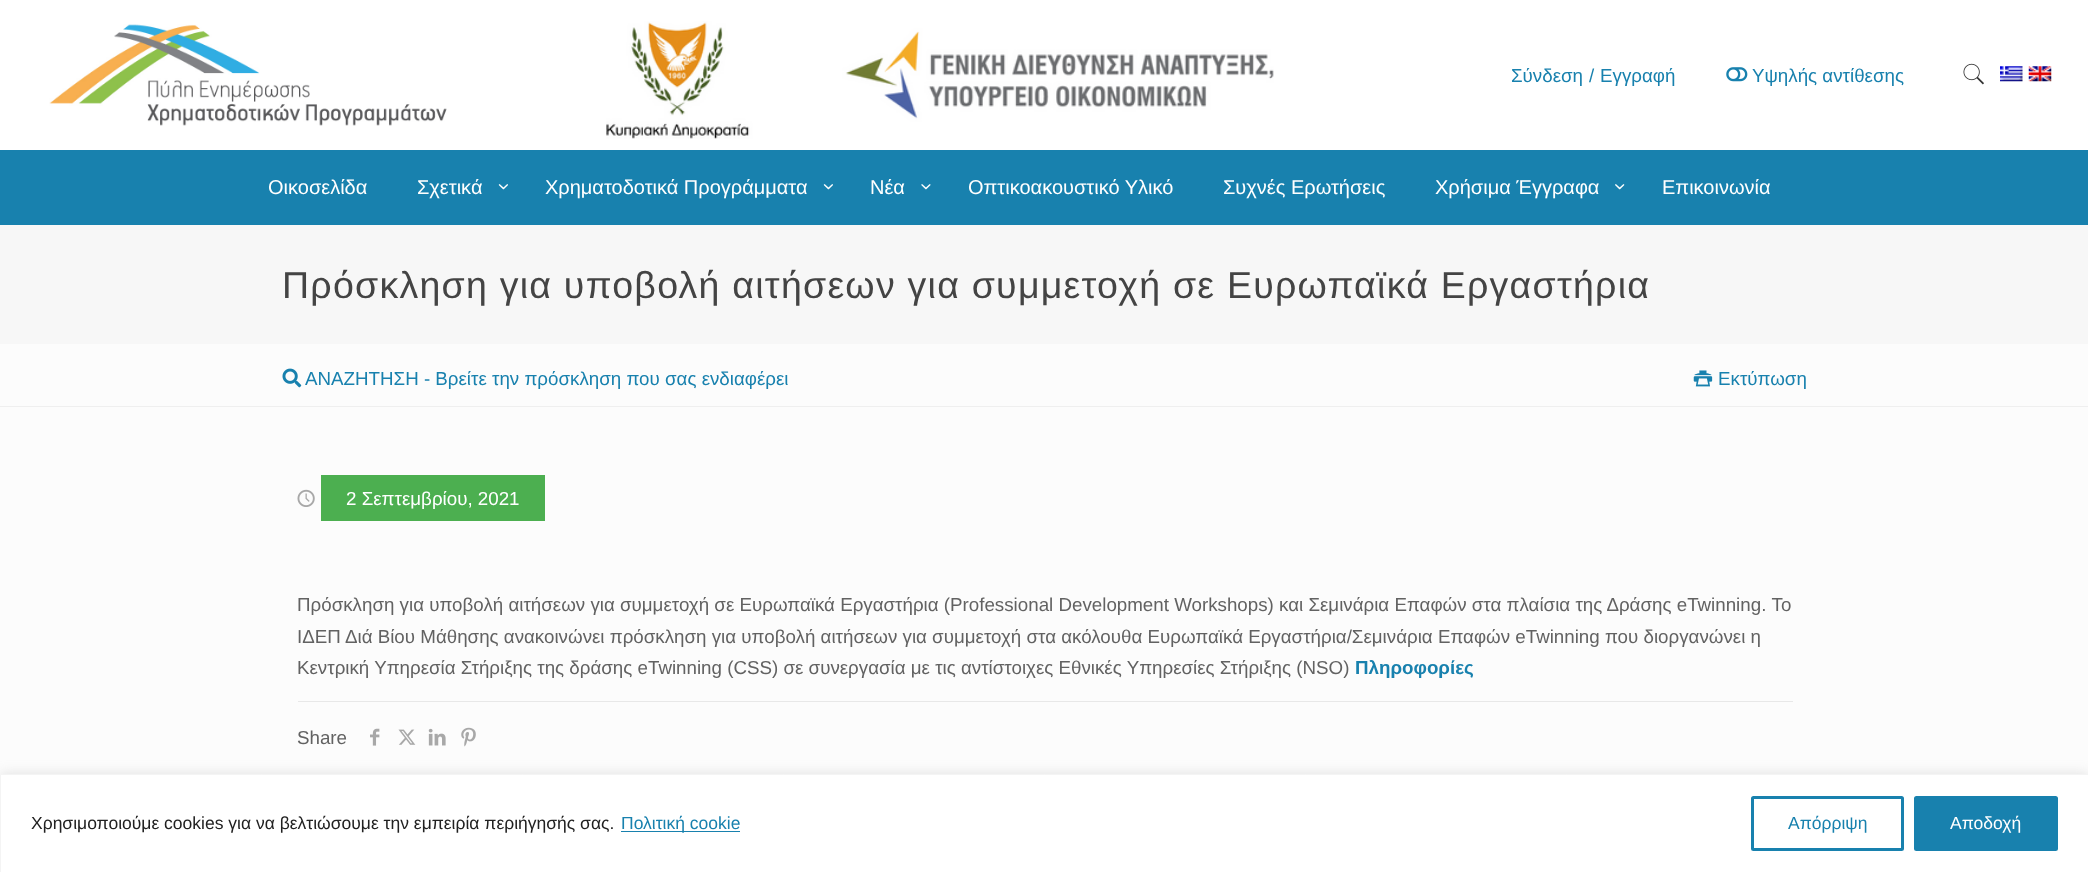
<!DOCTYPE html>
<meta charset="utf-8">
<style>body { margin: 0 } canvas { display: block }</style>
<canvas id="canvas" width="2088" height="872"></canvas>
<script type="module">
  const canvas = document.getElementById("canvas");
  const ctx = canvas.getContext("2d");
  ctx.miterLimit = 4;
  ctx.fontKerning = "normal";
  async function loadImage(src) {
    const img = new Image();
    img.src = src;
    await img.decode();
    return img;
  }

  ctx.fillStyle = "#fcfcfc";
  ctx.fillRect(0, 0, 2088, 872);
  ctx.fillStyle = "#ffffff";
  ctx.fillRect(0, 0, 2088, 150);
  ctx.drawImage(await loadImage("img1.png"), 49, 24, 398, 102);
  ctx.drawImage(await loadImage("img2.png"), 606, 21, 668, 118);
  ctx.font = "18.75px Liberation Sans";
  ctx.fillStyle = "#1881ae";
  ctx.fillText("Σύνδεση", 1511, 82);
  ctx.fillText("/", 1589, 82);
  ctx.fillText("Εγγραφή", 1600, 82);
  ctx.drawImage(await loadImage("img3.png"), 1726, 67, 22, 15);
  ctx.fillText("Υψηλής αντίθεσης", 1752, 82);
  ctx.drawImage(await loadImage("img4.png"), 1963, 63, 21, 22);
  ctx.drawImage(await loadImage("img5.png"), 2000, 66, 23, 16);
  ctx.drawImage(await loadImage("img6.png"), 2028, 66, 24, 16);
  ctx.fillRect(0, 150, 2088, 75);
  ctx.font = "20px Liberation Sans";
  ctx.fillStyle = "#ffffff";
  ctx.fillText("Οικοσελίδα", 268, 194);
  ctx.fillText("Σχετικά", 417, 194);
  ctx.drawImage(await loadImage("img7.png"), 498, 184, 10, 6);
  ctx.fillText("Χρηματοδοτικά Προγράμματα", 545, 194);
  ctx.drawImage(await loadImage("img7.png"), 823, 184, 10, 6);
  ctx.fillText("Νέα", 870, 194);
  ctx.drawImage(await loadImage("img8.png"), 921, 184, 10, 6);
  ctx.fillText("Οπτικοακουστικό Υλικό", 968, 194);
  ctx.fillText("Συχνές Ερωτήσεις", 1223, 194);
  ctx.fillText("Χρήσιμα Έγγραφα", 1435, 194);
  ctx.drawImage(await loadImage("img9.png"), 1615, 184, 10, 6);
  ctx.fillText("Επικοινωνία", 1662, 194);
  ctx.fillStyle = "#f7f7f7";
  ctx.fillRect(0, 225, 2088, 119);
  ctx.letterSpacing = "1.25px";
  ctx.font = "37.5px Liberation Sans";
  ctx.fillStyle = "#444444";
  ctx.fillText("Πρόσκληση για υποβολή αιτήσεων για συμμετοχή σε Ευρωπαϊκά Εργαστήρια", 282, 298);
  ctx.fillStyle = "#efefef";
  ctx.fillRect(0, 406, 2088, 1);
  ctx.drawImage(await loadImage("img10.png"), 282, 368, 20, 20);
  ctx.letterSpacing = "0px";
  ctx.font = "18.75px Liberation Sans";
  ctx.fillStyle = "#1881ae";
  ctx.fillText("ΑΝΑΖΗΤΗΣΗ - Βρείτε την πρόσκληση που σας ενδιαφέρει", 305, 385);
  ctx.drawImage(await loadImage("img11.png"), 1693, 370, 20, 17);
  ctx.fillText("Εκτύπωση", 1718, 385);
  ctx.drawImage(await loadImage("img12.png"), 297, 489, 18, 18);
  ctx.fillStyle = "#4caf50";
  ctx.fillRect(321, 475, 224, 46);
  ctx.fillStyle = "#ffffff";
  ctx.fillText("2 Σεπτεμβρίου, 2021", 346, 505);
  ctx.fillStyle = "#626262";
  ctx.fillText("Πρόσκληση για υποβολή αιτήσεων για συμμετοχή σε Ευρωπαϊκά Εργαστήρια (Professional Development Workshops) και Σεμινάρια Επαφών στα πλαίσια της Δράσης eTwinning. Το", 297, 611);
  ctx.fillText("ΙΔΕΠ Διά Βίου Μάθησης ανακοινώνει πρόσκληση για υποβολή αιτήσεων για συμμετοχή στα ακόλουθα Ευρωπαϊκά Εργαστήρια/Σεμινάρια Επαφών eTwinning που διοργανώνει η", 297, 643);
  ctx.fillText("Κεντρική Υπηρεσία Στήριξης της δράσης eTwinning (CSS) σε συνεργασία με τις αντίστοιχες Εθνικές Υπηρεσίες Στήριξης (NSO)", 297, 674);
  ctx.font = "bold 18.75px Liberation Sans";
  ctx.fillStyle = "#1881ae";
  ctx.fillText("Πληροφορίες", 1355, 674);
  ctx.fillStyle = "#e8e8e8";
  ctx.fillRect(298, 701, 1495, 1);
  ctx.font = "18.75px Liberation Sans";
  ctx.fillStyle = "#626262";
  ctx.fillText("Share", 297, 744);
  ctx.drawImage(await loadImage("img13.png"), 370, 728, 10, 18);
  ctx.drawImage(await loadImage("img14.png"), 398, 729, 18, 16);
  ctx.drawImage(await loadImage("img15.png"), 428, 728, 18, 18);
  ctx.drawImage(await loadImage("img16.png"), 461, 727, 15, 20);
  ctx.fillStyle = "rgba(172, 171, 171, 0.3)";
  ctx.filter = "blur(6px)";
  ctx.beginPath();
  ctx.rect(0, 773, 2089, 98);
  ctx.fill();
  ctx.filter = "none";
  ctx.fillStyle = "#ffffff";
  ctx.beginPath();
  ctx.rect(0.5, 774.5, 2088, 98);
  ctx.fill();
  ctx.strokeStyle = "#f4f4f4";
  ctx.stroke();
  ctx.font = "17.5px Liberation Sans";
  ctx.fillStyle = "#212121";
  ctx.fillText("Χρησιμοποιούμε cookies για να βελτιώσουμε την εμπειρία περιήγησής σας.", 31, 829);
  ctx.fillStyle = "#1881ae";
  ctx.fillRect(621, 831, 119, 1);
  ctx.fillText("Πολιτική cookie", 621, 829);
  ctx.beginPath();
  ctx.roundRect(1752.5, 797.5, 150, 52, 1);
  ctx.strokeStyle = "#1881ae";
  ctx.lineWidth = 3;
  ctx.stroke();
  ctx.fillText("Απόρριψη", 1788, 829);
  ctx.beginPath();
  ctx.roundRect(1915.5, 797.5, 141, 52, 1);
  ctx.fill();
  ctx.stroke();
  ctx.fillStyle = "#ffffff";
  ctx.fillText("Αποδοχή", 1950, 829);
</script>
